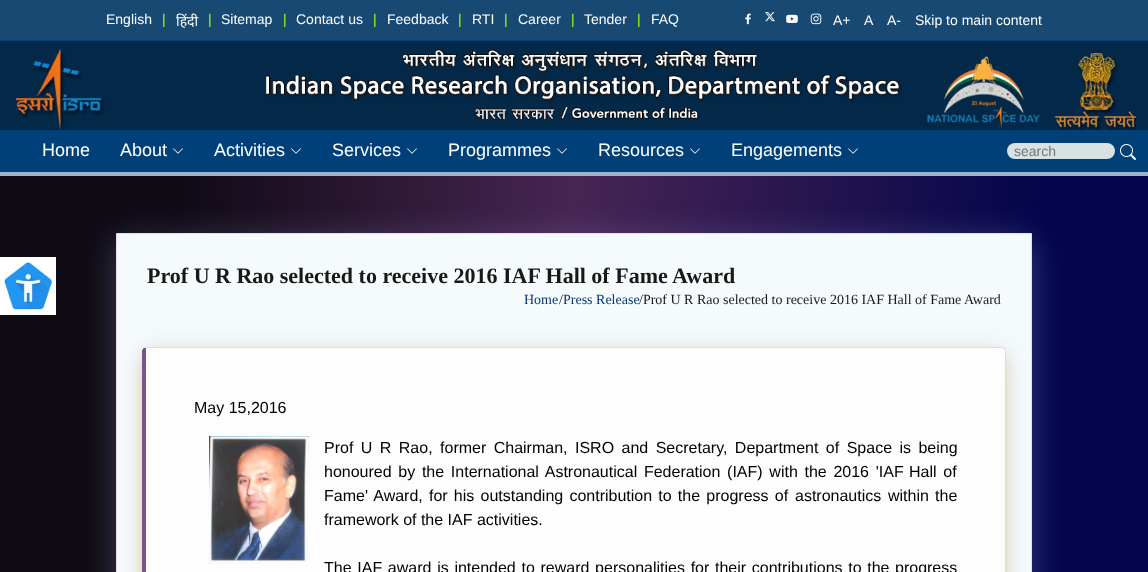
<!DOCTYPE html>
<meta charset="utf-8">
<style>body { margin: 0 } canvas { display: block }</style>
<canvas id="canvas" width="1148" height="572"></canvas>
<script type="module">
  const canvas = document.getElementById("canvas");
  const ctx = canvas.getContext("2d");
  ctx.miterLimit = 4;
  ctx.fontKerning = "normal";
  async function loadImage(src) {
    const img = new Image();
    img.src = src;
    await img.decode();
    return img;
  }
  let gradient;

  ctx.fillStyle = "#174973";
  ctx.fillRect(0, 0, 1148, 572);
  ctx.font = "14px Liberation Sans";
  ctx.fillStyle = "#ffffff";
  ctx.fillText("English", 106, 24);
  ctx.fillStyle = "#a3ff00";
  ctx.fillText("|", 162, 24);
  ctx.font = "14px Noto Sans";
  ctx.fillStyle = "#ffffff";
  ctx.fillText("हिंदी", 176, 26);
  ctx.font = "14px Liberation Sans";
  ctx.fillStyle = "#a3ff00";
  ctx.fillText("|", 208, 24);
  ctx.fillStyle = "#ffffff";
  ctx.fillText("Sitemap", 221, 24);
  ctx.fillStyle = "#a3ff00";
  ctx.fillText("|", 283, 24);
  ctx.fillStyle = "#ffffff";
  ctx.fillText("Contact us", 296, 24);
  ctx.fillStyle = "#a3ff00";
  ctx.fillText("|", 373, 24);
  ctx.fillStyle = "#ffffff";
  ctx.fillText("Feedback", 387, 24);
  ctx.fillStyle = "#a3ff00";
  ctx.fillText("|", 458, 24);
  ctx.fillStyle = "#ffffff";
  ctx.fillText("RTI", 472, 24);
  ctx.fillStyle = "#a3ff00";
  ctx.fillText("|", 504, 24);
  ctx.fillStyle = "#ffffff";
  ctx.fillText("Career", 518, 24);
  ctx.fillStyle = "#a3ff00";
  ctx.fillText("|", 571, 24);
  ctx.fillStyle = "#ffffff";
  ctx.fillText("Tender", 584, 24);
  ctx.fillStyle = "#a3ff00";
  ctx.fillText("|", 637, 24);
  ctx.fillStyle = "#ffffff";
  ctx.fillText("FAQ", 651, 24);
  ctx.drawImage(await loadImage("img1.png"), 745, 13, 6, 12);
  ctx.drawImage(await loadImage("img2.png"), 765, 12, 10, 10);
  ctx.drawImage(await loadImage("img3.png"), 786, 14, 12, 9);
  ctx.drawImage(await loadImage("img4.png"), 810, 13, 12, 12);
  ctx.fillText("A+", 833, 25);
  ctx.fillText("A", 864, 25);
  ctx.fillText("A-", 887, 25);
  ctx.fillText("Skip to main content", 915, 25);
  ctx.fillStyle = "#004079";
  ctx.fillRect(0, 40, 1148, 132);
  ctx.fillStyle = "#9fb3c9";
  ctx.fillRect(0, 172, 1148, 4);
  ctx.fillStyle = "#032848";
  ctx.fillRect(0, 41, 1148, 89);
  ctx.drawImage(await loadImage("img5.png"), 16, 49, 1120, 81);
  ctx.font = "18px Liberation Sans";
  ctx.fillStyle = "#ffffff";
  ctx.fillText("Home", 42, 156);
  ctx.fillText("About", 120, 156);
  ctx.drawImage(await loadImage("img6.png"), 173, 148, 10, 6);
  ctx.fillText("Activities", 214, 156);
  ctx.drawImage(await loadImage("img6.png"), 291, 148, 10, 6);
  ctx.fillText("Services", 332, 156);
  ctx.drawImage(await loadImage("img6.png"), 407, 148, 10, 6);
  ctx.fillText("Programmes", 448, 156);
  ctx.drawImage(await loadImage("img6.png"), 557, 148, 10, 6);
  ctx.fillText("Resources", 598, 156);
  ctx.drawImage(await loadImage("img6.png"), 690, 148, 10, 6);
  ctx.fillText("Engagements", 731, 156);
  ctx.drawImage(await loadImage("img6.png"), 848, 148, 10, 6);
  ctx.fillStyle = "#d9e2e2";
  ctx.beginPath();
  ctx.roundRect(1007, 143, 108, 16, 8);
  ctx.fill();
  ctx.font = "14px Liberation Sans";
  ctx.fillStyle = "#757575";
  ctx.fillText("search", 1014, 156);
  ctx.drawImage(await loadImage("img7.png"), 1120, 144, 16, 16);
  gradient = ctx.createLinearGradient(0, 555, 1148, 555);
  gradient.addColorStop(0.15, "#0f0a14");
  gradient.addColorStop(0.5, "#482553");
  gradient.addColorStop(0.91, "#04054b");
  ctx.fillStyle = gradient;
  ctx.fillRect(0, 176, 1148, 396);
  ctx.fillStyle = "#ffffff";
  ctx.fillRect(0, 257, 56, 58);
  ctx.drawImage(await loadImage("img8.png"), 4, 262, 48, 48);
  ctx.fillStyle = "rgba(147, 171, 225, 0.33)";
  ctx.filter = "blur(17.5px)";
  ctx.beginPath();
  ctx.rect(116, 241, 916, 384);
  ctx.fill();
  ctx.filter = "none";
  ctx.fillStyle = "#f5fafd";
  ctx.beginPath();
  ctx.rect(116.5, 233.5, 915, 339);
  ctx.fill();
  ctx.strokeStyle = "#efd5f1";
  ctx.stroke();
  ctx.font = "bold 22px Liberation Serif";
  ctx.fillStyle = "#1a1814";
  ctx.fillText("Prof U R Rao selected to receive 2016 IAF Hall of Fame Award", 147, 283);
  ctx.font = "14px Liberation Serif";
  ctx.fillStyle = "#06357a";
  ctx.fillText("Home", 524, 304);
  ctx.fillStyle = "#1a1814";
  ctx.fillText("/", 559, 304);
  ctx.fillStyle = "#06357a";
  ctx.fillText("Press Release", 563, 304);
  ctx.fillStyle = "#1a1814";
  ctx.fillText("/Prof U R Rao selected to receive 2016 IAF Hall of Fame Award", 639, 304);
  ctx.fillStyle = "rgba(177, 171, 253, 0.2)";
  ctx.filter = "blur(5px)";
  ctx.beginPath();
  ctx.rect(147, 360, 854, 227);
  ctx.fill();
  ctx.filter = "none";
  ctx.fillStyle = "rgba(0, 0, 0, 0.12)";
  ctx.filter = "blur(12.5px)";
  ctx.beginPath();
  ctx.roundRect(142, 351, 864, 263, 4);
  ctx.fill();
  ctx.filter = "none";
  ctx.fillStyle = "#f2b600";
  ctx.filter = "blur(10px)";
  ctx.beginPath();
  ctx.rect(152, 362, 844, 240);
  ctx.fill();
  ctx.filter = "none";
  ctx.fillStyle = "#fdfdfd";
  ctx.beginPath();
  ctx.roundRect(142, 347, 864, 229, 4);
  ctx.fill();
  ctx.fillStyle = "rgba(0, 0, 0, 0.12)";
  ctx.beginPath();
  ctx.moveTo(146, 347);
  ctx.lineTo(144, 348);
  ctx.lineTo(146, 348);
  ctx.lineTo(1002, 348);
  ctx.lineTo(1004, 349);
  ctx.lineTo(1005, 348);
  ctx.lineTo(1002, 347);
  ctx.closePath();
  ctx.fill();
  ctx.beginPath();
  ctx.moveTo(1006, 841);
  ctx.lineTo(1006, 351);
  ctx.lineTo(1005, 348);
  ctx.lineTo(1004, 349);
  ctx.lineTo(1005, 351);
  ctx.lineTo(1005, 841);
  ctx.lineTo(1004, 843);
  ctx.lineTo(1005, 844);
  ctx.closePath();
  ctx.fill();
  ctx.fillStyle = "#7c538b";
  ctx.beginPath();
  ctx.moveTo(146, 348);
  ctx.lineTo(144, 348);
  ctx.bezierCurveTo(143, 348, 142, 350, 142, 351);
  ctx.lineTo(142, 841);
  ctx.bezierCurveTo(142, 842, 143, 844, 144, 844);
  ctx.lineTo(146, 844);
  ctx.closePath();
  ctx.fill();
  ctx.font = "16px Liberation Sans";
  ctx.fillStyle = "#000000";
  ctx.fillText("May 15,2016", 194, 413);
  ctx.drawImage(await loadImage("img9.png"), 209, 436, 100, 128);
  ctx.wordSpacing = "3px";
  ctx.fillText("Prof U R Rao, former Chairman, ISRO and Secretary, Department of Space is being", 324, 453);
  ctx.wordSpacing = "2.25px";
  ctx.fillText("honoured by the International Astronautical Federation (IAF) with the 2016 'IAF", 324, 477);
  ctx.fillText("Hall of", 909, 477);
  ctx.wordSpacing = "1.75px";
  ctx.fillText("Fame' Award, for his outstanding contribution to the progress of", 324, 501);
  ctx.wordSpacing = "0px";
  ctx.fillText("astronautics", 795, 501);
  ctx.wordSpacing = "1.75px";
  ctx.fillText("within the", 888, 501);
  ctx.wordSpacing = "0px";
  ctx.fillText("framework of the IAF activities.", 324, 525);
  ctx.wordSpacing = "1.25px";
  ctx.fillText("The IAF award is intended to reward personalities for their contributions to the", 324, 573);
  ctx.wordSpacing = "0px";
  ctx.fillText("progress", 895, 573);
</script>
